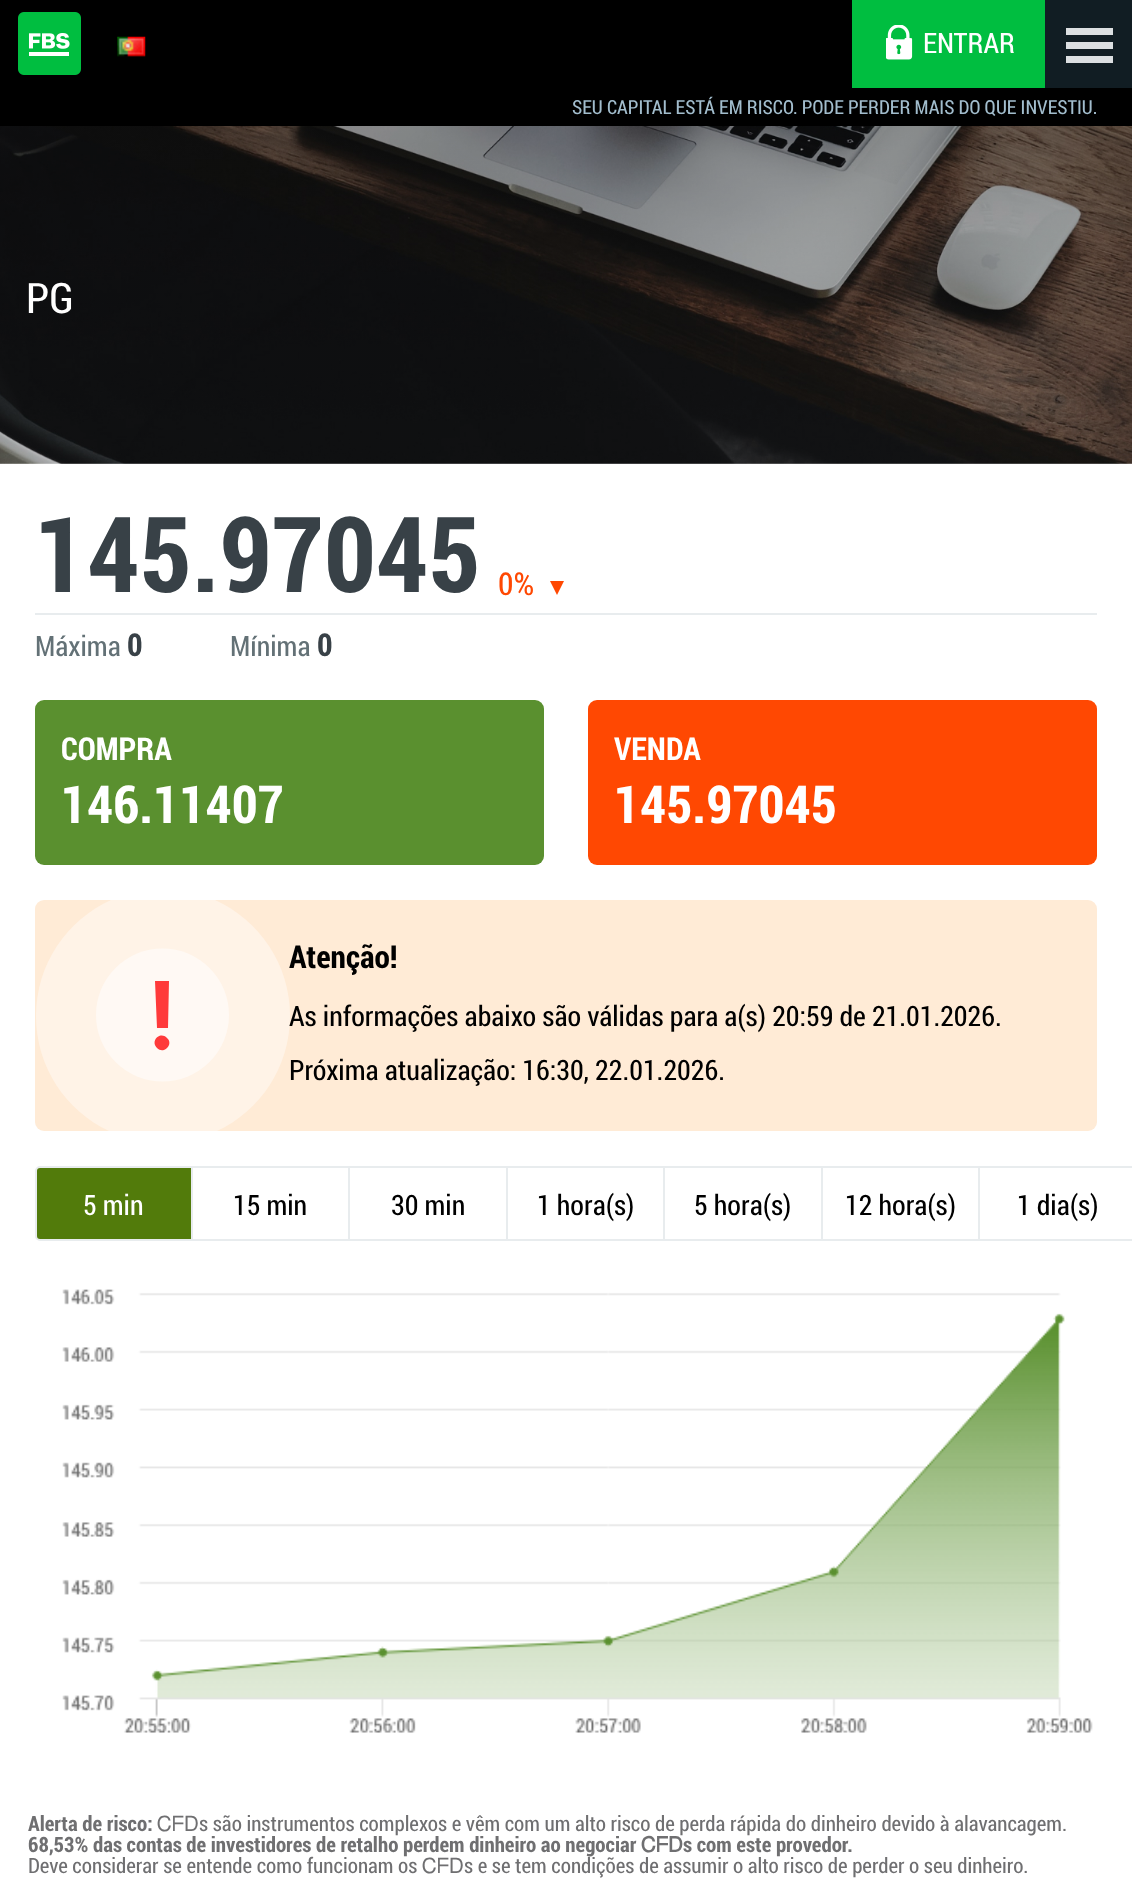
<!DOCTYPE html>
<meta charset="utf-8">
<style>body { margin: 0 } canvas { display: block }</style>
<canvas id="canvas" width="1132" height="1887"></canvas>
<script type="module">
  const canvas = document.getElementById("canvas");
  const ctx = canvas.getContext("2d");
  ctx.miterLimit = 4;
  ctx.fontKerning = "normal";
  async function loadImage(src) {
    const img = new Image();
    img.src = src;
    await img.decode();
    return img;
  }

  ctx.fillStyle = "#ffffff";
  ctx.fillRect(0, 0, 1132, 1887);
  ctx.fillStyle = "#000000";
  ctx.fillRect(0, 0, 852, 88);
  ctx.drawImage(await loadImage("img1.png"), 18, 12, 63, 63);
  ctx.fillStyle = "#111d23";
  ctx.fillRect(1045, 0, 87, 88);
  ctx.fillStyle = "#dcdfe1";
  ctx.fillRect(1066, 28, 47, 7);
  ctx.fillRect(1066, 42, 47, 7);
  ctx.fillRect(1066, 56, 47, 7);
  ctx.drawImage(await loadImage("img2.png"), 117, 36, 29, 21);
  ctx.fillStyle = "#00be40";
  ctx.fillRect(852, 0, 193, 88);
  ctx.drawImage(await loadImage("img3.png"), 886, 25, 27, 35);
  ctx.font = "28px Roboto Condensed";
  ctx.fillStyle = "#ffffff";
  ctx.fillText("ENTRAR", 923, 53);
  ctx.fillStyle = "#000000";
  ctx.fillRect(0, 88, 1132, 38);
  ctx.font = "19.25px Roboto Condensed";
  ctx.fillStyle = "#a2bdcd";
  ctx.fillText("SEU CAPITAL ESTÁ EM RISCO. PODE PERDER MAIS DO QUE INVESTIU.", 572, 114);
  ctx.drawImage(await loadImage("img4.png"), 0, 126, 1132, 338);
  ctx.font = "42px Roboto Condensed";
  ctx.fillStyle = "#ffffff";
  ctx.fillText("PG", 26, 313);
  ctx.fillStyle = "#e8ecee";
  ctx.fillRect(35, 613, 1062, 2);
  ctx.font = "bold 105px Roboto Condensed";
  ctx.fillStyle = "#384147";
  ctx.fillText("145.97045", 35, 592);
  ctx.font = "31.5px Roboto Condensed";
  ctx.fillStyle = "#ff4802";
  ctx.fillText("0%", 498, 595);
  ctx.beginPath();
  ctx.moveTo(557, 595);
  ctx.lineTo(550, 581);
  ctx.lineTo(564, 581);
  ctx.closePath();
  ctx.fill("evenodd");
  ctx.font = "28px Roboto Condensed";
  ctx.fillStyle = "#637176";
  ctx.fillText("Máxima", 35, 656);
  ctx.font = "bold 31.5px Roboto Condensed";
  ctx.fillStyle = "#384147";
  ctx.fillText("0", 127, 656);
  ctx.font = "28px Roboto Condensed";
  ctx.fillStyle = "#637176";
  ctx.fillText("Mínima", 230, 656);
  ctx.font = "bold 31.5px Roboto Condensed";
  ctx.fillStyle = "#384147";
  ctx.fillText("0", 317, 656);
  ctx.fillStyle = "#5a902f";
  ctx.beginPath();
  ctx.roundRect(35, 700, 509, 165, 9);
  ctx.fill();
  ctx.fillStyle = "#ffffff";
  ctx.fillText("COMPRA", 61, 760);
  ctx.font = "bold 52.5px Roboto Condensed";
  ctx.fillText("146.11407", 61, 823);
  ctx.fillStyle = "#ff4802";
  ctx.beginPath();
  ctx.roundRect(588, 700, 509, 165, 9);
  ctx.fill();
  ctx.font = "bold 31.5px Roboto Condensed";
  ctx.fillStyle = "#ffffff";
  ctx.fillText("VENDA", 614, 760);
  ctx.font = "bold 52.5px Roboto Condensed";
  ctx.fillText("145.97045", 614, 823);
  ctx.fillStyle = "#ffebd6";
  ctx.beginPath();
  ctx.roundRect(35, 900, 1062, 231, 9);
  ctx.fill();
  ctx.fillStyle = "#fff3e7";
  ctx.beginPath();
  ctx.moveTo(109, 1131);
  ctx.bezierCurveTo(66, 1111, 36, 1067, 36, 1016);
  ctx.bezierCurveTo(36, 964, 67, 920, 111, 900);
  ctx.lineTo(215, 900);
  ctx.bezierCurveTo(259, 920, 290, 964, 290, 1016);
  ctx.bezierCurveTo(290, 1067, 260, 1111, 217, 1131);
  ctx.closePath();
  ctx.fill();
  ctx.fillStyle = "#fff9f4";
  ctx.beginPath();
  ctx.arc(162.5, 1015, 66.5, 0, Math.PI * 2);
  ctx.fill();
  ctx.fillStyle = "#ff3a3a";
  ctx.beginPath();
  ctx.moveTo(169, 981);
  ctx.lineTo(155, 981);
  ctx.lineTo(157, 1028);
  ctx.lineTo(168, 1028);
  ctx.closePath();
  ctx.moveTo(157, 1048);
  ctx.bezierCurveTo(164, 1055, 174, 1044, 167, 1038);
  ctx.bezierCurveTo(160, 1031, 150, 1041, 157, 1048);
  ctx.closePath();
  ctx.fill("evenodd");
  ctx.font = "bold 31.5px Roboto Condensed";
  ctx.fillStyle = "#000000";
  ctx.fillText("Atenção!", 289, 968);
  ctx.font = "28px Roboto Condensed";
  ctx.fillText("As informações abaixo são válidas para a(s) 20:59 de 21.01.2026.", 289, 1026);
  ctx.fillText("Próxima atualização: 16:30, 22.01.2026.", 289, 1080);
  ctx.fillStyle = "#527b0b";
  ctx.beginPath();
  ctx.roundRect(36, 1167, 156, 73, [4, 0, 0, 4]);
  ctx.fill();
  ctx.strokeStyle = "#e8ecee";
  ctx.lineWidth = 2;
  ctx.stroke();
  ctx.fillStyle = "#ffffff";
  ctx.fillText("5 min", 83, 1215);
  ctx.fillStyle = "#e8ecee";
  ctx.fillRect(193, 1166, 939, 2);
  ctx.fillRect(348, 1166, 2, 75);
  ctx.fillRect(193, 1239, 157, 2);
  ctx.fillStyle = "#000000";
  ctx.fillText("15 min", 233, 1215);
  ctx.fillStyle = "#e8ecee";
  ctx.fillRect(506, 1166, 2, 75);
  ctx.fillRect(350, 1239, 158, 2);
  ctx.fillStyle = "#000000";
  ctx.fillText("30 min", 391, 1215);
  ctx.fillStyle = "#e8ecee";
  ctx.fillRect(663, 1166, 2, 75);
  ctx.fillRect(508, 1239, 157, 2);
  ctx.fillStyle = "#000000";
  ctx.fillText("1 hora(s)", 537, 1215);
  ctx.fillStyle = "#e8ecee";
  ctx.fillRect(821, 1166, 2, 75);
  ctx.fillRect(665, 1239, 158, 2);
  ctx.fillStyle = "#000000";
  ctx.fillText("5 hora(s)", 694, 1215);
  ctx.fillStyle = "#e8ecee";
  ctx.fillRect(978, 1166, 2, 75);
  ctx.fillRect(823, 1239, 309, 2);
  ctx.fillStyle = "#000000";
  ctx.fillText("12 hora(s)", 845, 1215);
  ctx.fillText("1 dia(s)", 1017, 1215);
  ctx.drawImage(await loadImage("img5.png"), 62, 1289, 1031, 444);
  ctx.font = "bold 21px Roboto Condensed";
  ctx.fillStyle = "#6f6f71";
  ctx.fillText("Alerta de risco:", 28, 1831);
  ctx.font = "21px FreeSans";
  ctx.fillText("ᏟᖴᎠ", 157, 1831);
  ctx.font = "21px Roboto Condensed";
  ctx.fillText("s são instrumentos complexos e vêm com um alto risco de perda rápida do dinheiro devido à alavancagem.", 199, 1831);
  ctx.font = "bold 21px Roboto Condensed";
  ctx.fillText("68,53% das contas de investidores de retalho perdem dinheiro ao negociar", 28, 1852);
  ctx.font = "bold 21px FreeSans";
  ctx.fillText("ᏟᖴᎠ", 641, 1852);
  ctx.font = "bold 21px Roboto Condensed";
  ctx.fillText("s com este provedor.", 683, 1852);
  ctx.font = "21px Roboto Condensed";
  ctx.fillText("Deve considerar se entende como funcionam os", 28, 1873);
  ctx.font = "21px FreeSans";
  ctx.fillText("ᏟᖴᎠ", 422, 1873);
  ctx.font = "21px Roboto Condensed";
  ctx.fillText("s e se tem condições de assumir o alto risco de perder o seu dinheiro.", 464, 1873);
</script>
